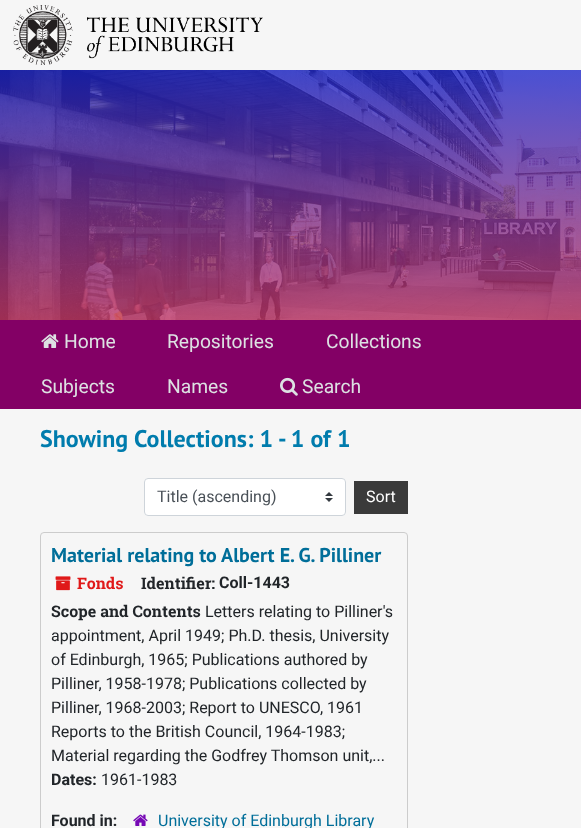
<!DOCTYPE html>
<meta charset="utf-8">
<style>body { margin: 0 } canvas { display: block }</style>
<canvas id="canvas" width="581" height="828"></canvas>
<script type="module">
  const canvas = document.getElementById("canvas");
  const ctx = canvas.getContext("2d");
  ctx.miterLimit = 4;
  ctx.fontKerning = "normal";
  async function loadImage(src) {
    const img = new Image();
    img.src = src;
    await img.decode();
    return img;
  }

  ctx.fillStyle = "#f6f6f6";
  ctx.fillRect(0, 0, 581, 828);
  ctx.drawImage(await loadImage("img1.png"), 13, 5, 250, 60);
  ctx.drawImage(await loadImage("img2.png"), 0, 70, 581, 250);
  ctx.fillStyle = "#830065";
  ctx.fillRect(0, 320, 581, 89);
  ctx.drawImage(await loadImage("img3.png"), 41, 334, 18, 14);
  ctx.font = "19.25px Roboto";
  ctx.fillStyle = "#dde1e3";
  ctx.fillText("Home", 64, 348);
  ctx.fillText("Repositories", 167, 348);
  ctx.fillText("Collections", 326, 348);
  ctx.fillText("Subjects", 41, 393);
  ctx.fillText("Names", 167, 393);
  ctx.drawImage(await loadImage("img4.png"), 280, 377, 18, 19);
  ctx.fillText("Search", 302, 393);
  ctx.font = "bold 24px PT Sans";
  ctx.fillStyle = "#007cad";
  ctx.fillText("Showing Collections: 1 - 1 of 1", 40, 447);
  ctx.fillStyle = "#ffffff";
  ctx.beginPath();
  ctx.roundRect(144, 478, 202, 38, 4);
  ctx.fill();
  ctx.drawImage(await loadImage("img5.png"), 325, 492, 8, 10);
  ctx.beginPath();
  ctx.roundRect(144.5, 478.5, 201, 37, 3.5);
  ctx.strokeStyle = "#ced4da";
  ctx.stroke();
  ctx.font = "16px Roboto";
  ctx.fillStyle = "#495057";
  ctx.fillText("Title (ascending)", 157, 502);
  ctx.fillStyle = "#3a3a3a";
  ctx.fillRect(354, 481, 54, 33);
  ctx.fillStyle = "#ffffff";
  ctx.fillText("Sort", 366, 502);
  ctx.beginPath();
  ctx.roundRect(40.5, 532.5, 367, 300, 3.5);
  ctx.strokeStyle = "#cccccc";
  ctx.stroke();
  ctx.font = "bold 20px PT Sans";
  ctx.fillStyle = "#006e99";
  ctx.fillText("Material relating to Albert E. G. Pilliner", 51, 562);
  ctx.drawImage(await loadImage("img6.png"), 55, 576, 16, 15);
  ctx.font = "bold 16px Roboto Slab";
  ctx.fillStyle = "#e01919";
  ctx.fillText("Fonds", 77, 589);
  ctx.fillStyle = "#212529";
  ctx.fillText("Identifier:", 141, 589);
  ctx.font = "bold 16px Roboto";
  ctx.fillText("Coll-1443", 219, 588);
  ctx.font = "bold 16px Roboto Slab";
  ctx.fillText("Scope and Contents", 51, 617);
  ctx.font = "16px Roboto";
  ctx.fillText("Letters relating to Pilliner's", 205, 617);
  ctx.fillText("appointment, April 1949; Ph.D. thesis, University", 51, 641);
  ctx.fillText("of Edinburgh, 1965; Publications authored by", 51, 665);
  ctx.fillText("Pilliner, 1958-1978; Publications collected by", 51, 689);
  ctx.fillText("Pilliner, 1968-2003; Report to UNESCO, 1961", 51, 713);
  ctx.fillText("Reports to the British Council, 1964-1983;", 51, 737);
  ctx.fillText("Material regarding the Godfrey Thomson unit,...", 51, 761);
  ctx.font = "bold 16px Roboto";
  ctx.fillText("Dates:", 51, 785);
  ctx.font = "16px Roboto";
  ctx.fillText("1961-1983", 101, 785);
  ctx.font = "bold 16px Roboto";
  ctx.fillText("Found in:", 51, 826);
  ctx.drawImage(await loadImage("img7.png"), 133, 814, 15, 12);
  ctx.font = "16px Roboto";
  ctx.fillStyle = "#006e99";
  ctx.fillText("University of Edinburgh Library", 158, 826);
</script>
